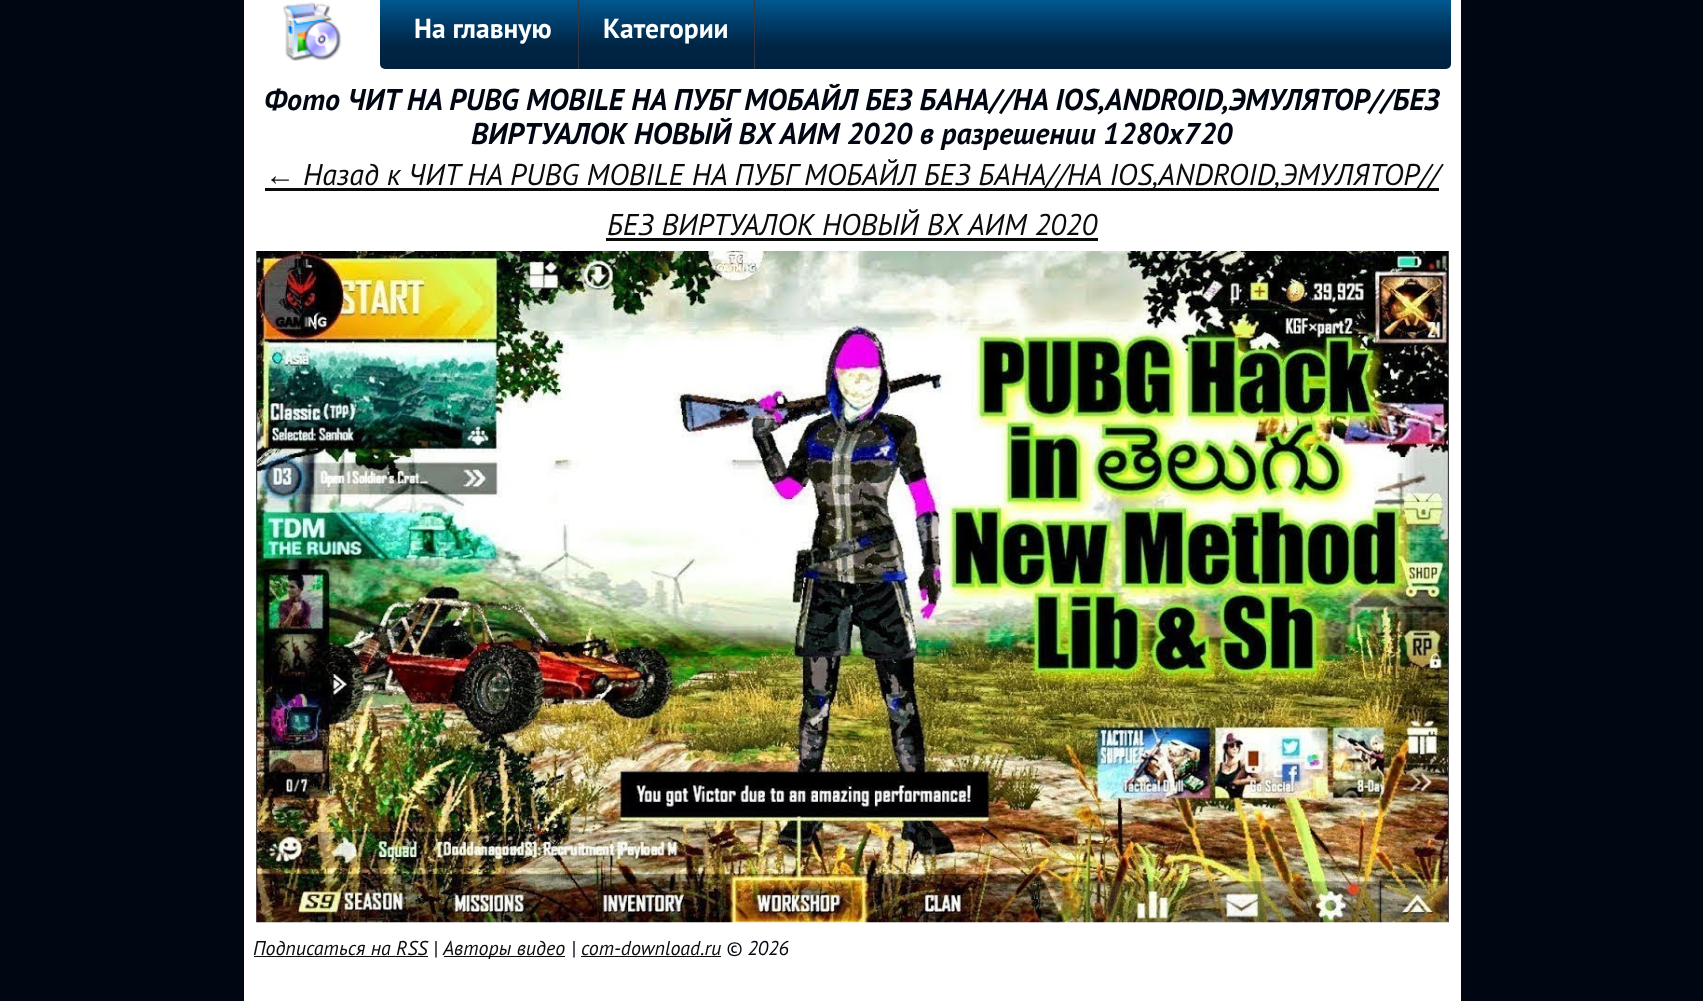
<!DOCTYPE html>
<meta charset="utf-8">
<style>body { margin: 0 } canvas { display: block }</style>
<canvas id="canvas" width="1703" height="1001"></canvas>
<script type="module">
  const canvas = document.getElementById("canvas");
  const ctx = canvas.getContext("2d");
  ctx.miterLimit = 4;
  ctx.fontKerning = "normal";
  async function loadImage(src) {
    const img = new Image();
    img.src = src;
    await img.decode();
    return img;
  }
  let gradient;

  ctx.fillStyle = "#000612";
  ctx.fillRect(0, 0, 1703, 1001);
  ctx.fillStyle = "#ffffff";
  ctx.fillRect(244, 0, 1217, 1001);
  ctx.drawImage(await loadImage("img1.png"), 282, 2, 60, 59);
  gradient = ctx.createLinearGradient(916, -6.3, 916, 69);
  gradient.addColorStop(0, "#00609b");
  gradient.addColorStop(0.33, "#004271");
  gradient.addColorStop(0.67, "#002646");
  gradient.addColorStop(1, "#002140");
  ctx.fillStyle = gradient;
  ctx.beginPath();
  ctx.roundRect(380, -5, 1071, 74, 5);
  ctx.fill();
  ctx.fillStyle = "#333742";
  ctx.fillRect(578, 0, 1, 69);
  ctx.font = "bold 27.5px PT Sans";
  ctx.fillStyle = "#ffffff";
  ctx.fillText("На главную", 414, 38);
  ctx.fillStyle = "#333742";
  ctx.fillRect(754, 0, 1, 69);
  ctx.fillStyle = "#ffffff";
  ctx.fillText("Категории", 603, 38);
  ctx.font = "italic bold 30px PT Sans";
  ctx.fillStyle = "#000612";
  ctx.fillText("Фото ЧИТ НА PUBG MOBILE НА ПУБГ МОБАЙЛ БЕЗ БАНА//НА IOS,ANDROID,ЭМУЛЯТОР//БЕЗ", 264, 110);
  ctx.fillText("ВИРТУАЛОК НОВЫЙ ВХ АИМ 2020 в разрешении 1280x720", 471, 144);
  ctx.font = "30px Liberation Sans";
  ctx.fillStyle = "#0b0b0b";
  ctx.fillText("←", 265, 185);
  ctx.fillRect(265, 188, 1174, 3);
  ctx.font = "italic 30px PT Sans";
  ctx.fillText("Назад к ЧИТ НА PUBG MOBILE НА ПУБГ МОБАЙЛ БЕЗ БАНА//НА IOS,ANDROID,ЭМУЛЯТОР//", 303, 185);
  ctx.fillText("БЕЗ ВИРТУАЛОК НОВЫЙ ВХ АИМ 2020", 607, 235);
  ctx.fillRect(606, 238, 492, 3);
  ctx.drawImage(await loadImage("img2.png"), 256, 251, 1193, 672);
  ctx.font = "italic 20px PT Sans";
  ctx.fillText("Подписаться на RSS", 253, 955);
  ctx.fillRect(254, 956, 174, 1);
  ctx.fillStyle = "#000612";
  ctx.fillText("|", 433, 955);
  ctx.fillStyle = "#0b0b0b";
  ctx.fillRect(444, 956, 121, 1);
  ctx.fillText("Авторы видео", 443, 955);
  ctx.fillStyle = "#000612";
  ctx.fillText("|", 571, 955);
  ctx.fillStyle = "#0b0b0b";
  ctx.fillText("com-download.ru", 581, 955);
  ctx.fillRect(581, 956, 140, 1);
  ctx.fillStyle = "#000612";
  ctx.fillText("© 2026", 726, 955);
</script>
